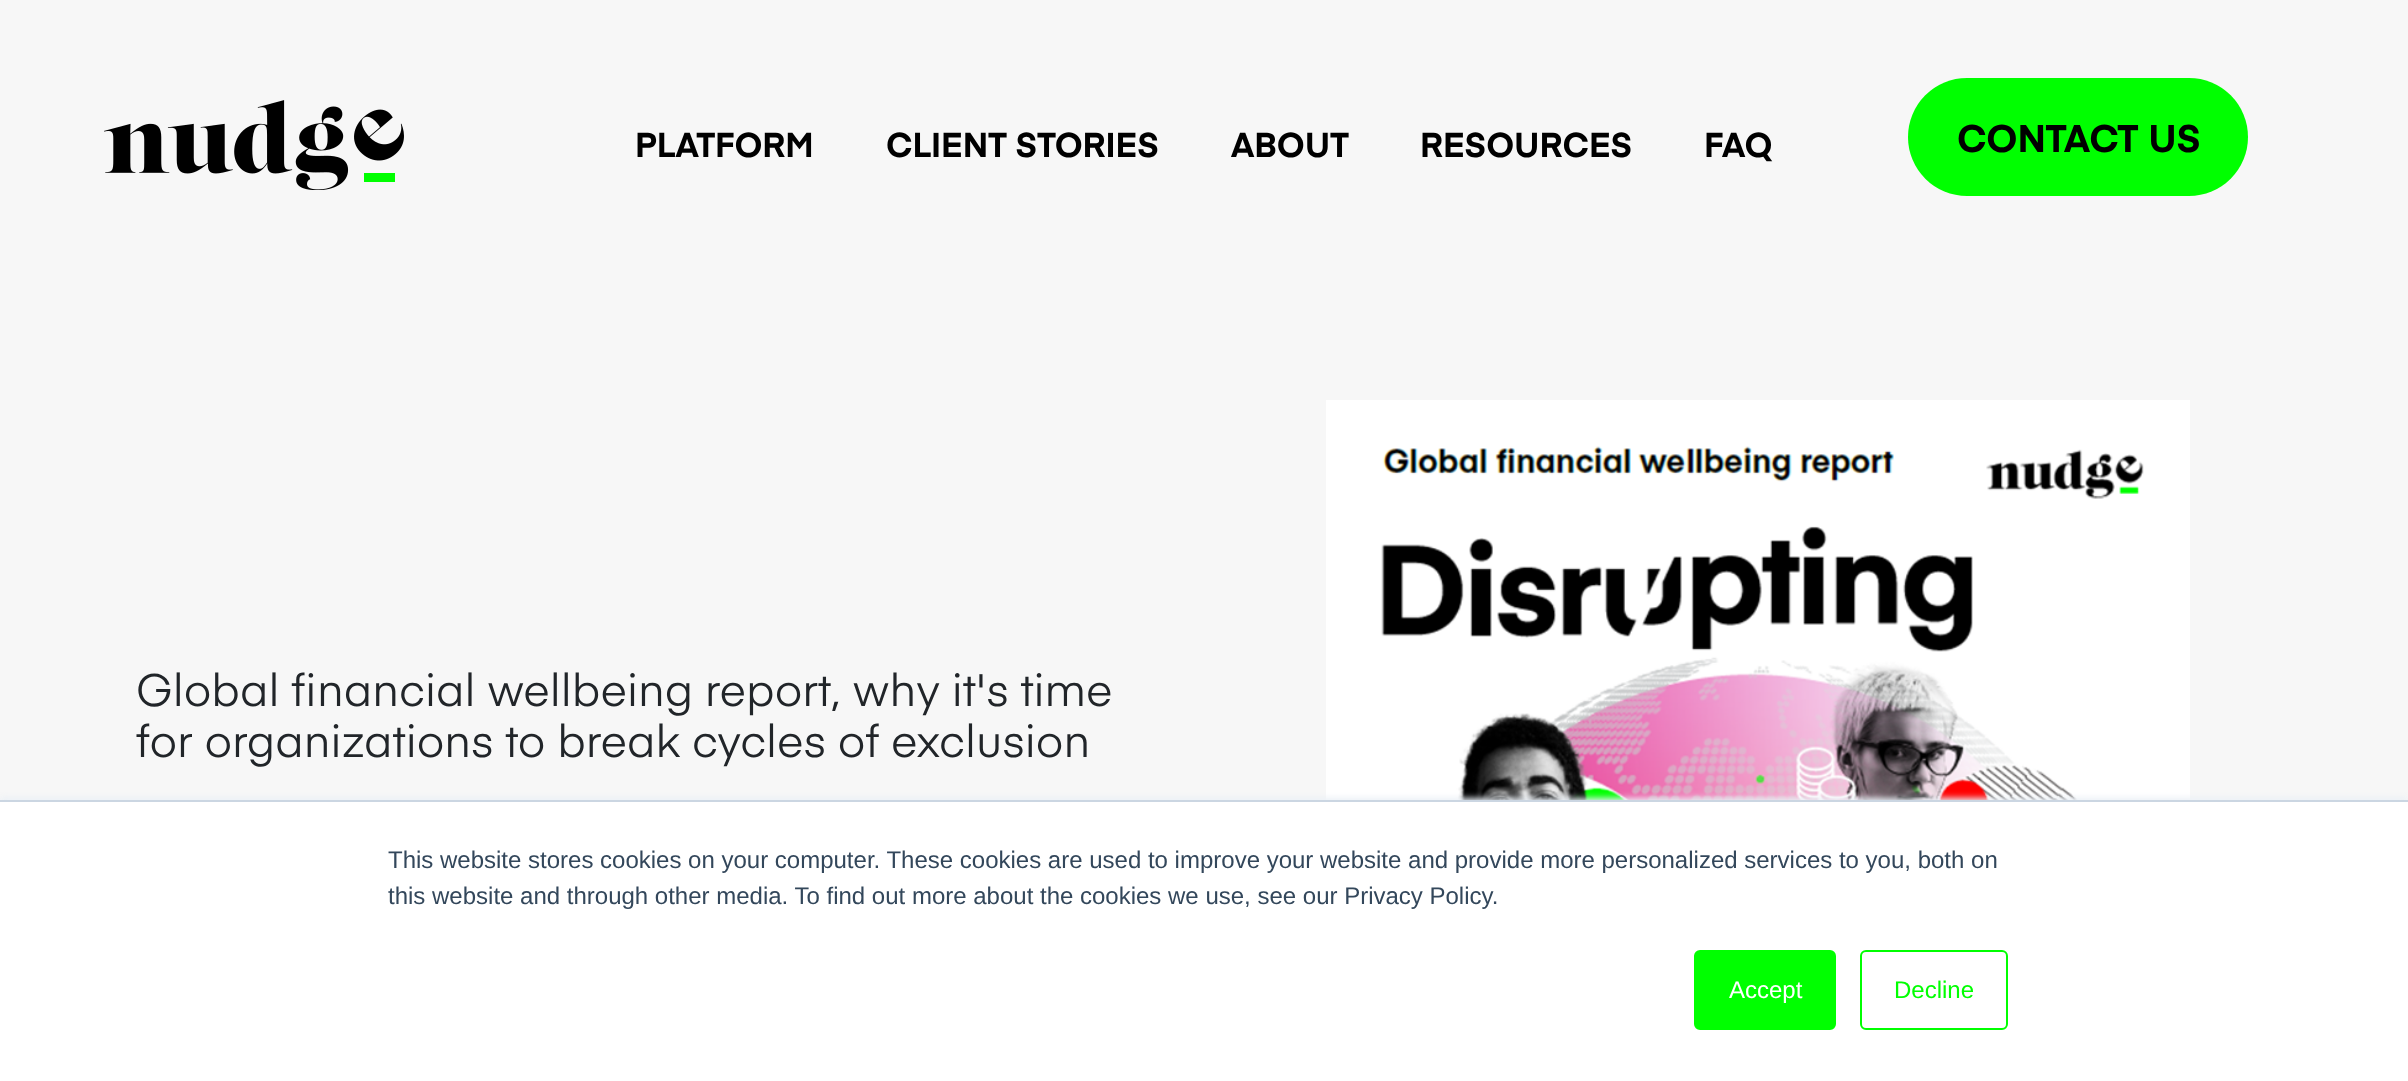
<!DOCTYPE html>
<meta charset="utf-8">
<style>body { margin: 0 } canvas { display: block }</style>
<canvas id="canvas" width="2408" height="1081"></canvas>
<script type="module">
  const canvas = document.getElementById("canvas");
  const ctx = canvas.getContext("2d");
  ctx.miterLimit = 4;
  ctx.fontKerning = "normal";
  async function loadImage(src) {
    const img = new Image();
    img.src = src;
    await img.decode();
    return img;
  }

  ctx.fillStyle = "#f7f7f7";
  ctx.fillRect(0, 0, 2408, 1081);
  ctx.drawImage(await loadImage("img1.png"), 104, 100, 300, 90);
  ctx.font = "bold 34px 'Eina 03'";
  ctx.fillStyle = "#000000";
  ctx.fillText("PLATFORM", 635, 157);
  ctx.fillText("CLIENT STORIES", 886, 157);
  ctx.fillText("ABOUT", 1231, 157);
  ctx.fillText("RESOURCES", 1420, 157);
  ctx.fillText("FAQ", 1704, 157);
  ctx.fillStyle = "#00ff00";
  ctx.beginPath();
  ctx.roundRect(1908, 78, 340, 118, 59);
  ctx.fill();
  ctx.font = "bold 38px 'Eina 03'";
  ctx.fillStyle = "#000000";
  ctx.fillText("CONTACT US", 1957, 152);
  ctx.font = "44.8px 'Eina 03'";
  ctx.fillStyle = "#212529";
  ctx.fillText("Global financial wellbeing report, why it's time", 136, 706);
  ctx.fillText("for organizations to break cycles of exclusion", 136, 757);
  ctx.drawImage(await loadImage("img2.png"), 1326, 400, 864, 400);
  ctx.fillStyle = "#eaf0f6";
  ctx.filter = "blur(3px)";
  ctx.beginPath();
  ctx.rect(0, 798, 2408, 282);
  ctx.fill();
  ctx.filter = "none";
  ctx.fillStyle = "#ffffff";
  ctx.fillRect(0, 802, 2408, 279);
  ctx.fillStyle = "#cbd6e2";
  ctx.fillRect(0, 800, 2408, 2);
  ctx.font = "24px Liberation Sans";
  ctx.fillStyle = "#33475b";
  ctx.fillText("This website stores cookies on your computer. These cookies are used to improve your website and provide more personalized services to you, both on", 388, 868);
  ctx.fillText("this website and through other media. To find out more about the cookies we use, see our Privacy Policy.", 388, 904);
  ctx.fillStyle = "#00ff00";
  ctx.beginPath();
  ctx.roundRect(1695, 951, 140, 78, 5);
  ctx.fill();
  ctx.strokeStyle = "#00ff00";
  ctx.lineWidth = 2;
  ctx.stroke();
  ctx.fillStyle = "#ffffff";
  ctx.fillText("Accept", 1729, 998);
  ctx.beginPath();
  ctx.roundRect(1861, 951, 146, 78, 5);
  ctx.stroke();
  ctx.fillStyle = "#00ff00";
  ctx.fillText("Decline", 1894, 998);
</script>
